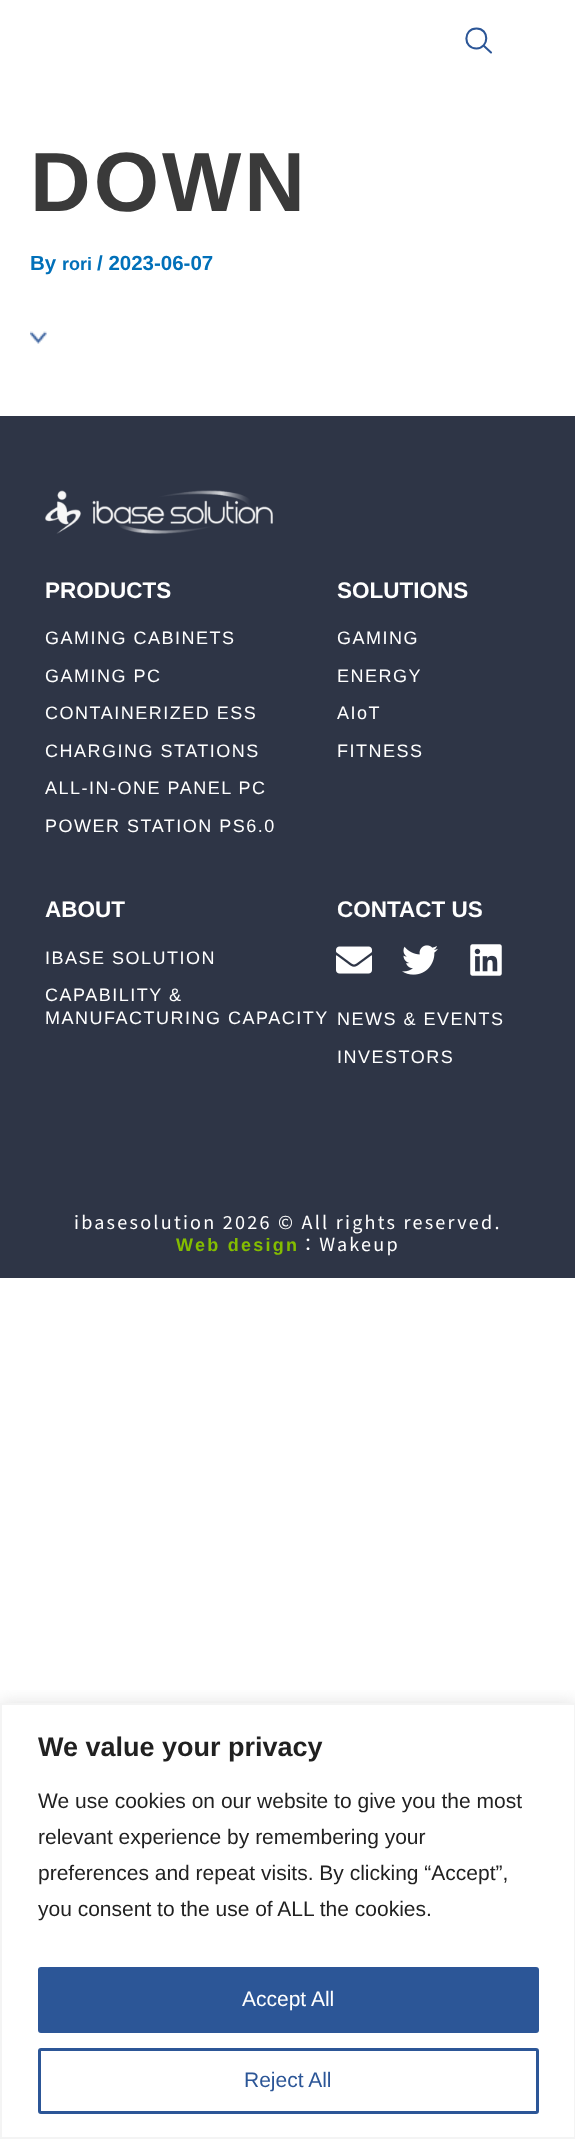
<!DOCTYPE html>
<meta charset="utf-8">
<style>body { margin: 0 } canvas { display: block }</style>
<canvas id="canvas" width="575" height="2139"></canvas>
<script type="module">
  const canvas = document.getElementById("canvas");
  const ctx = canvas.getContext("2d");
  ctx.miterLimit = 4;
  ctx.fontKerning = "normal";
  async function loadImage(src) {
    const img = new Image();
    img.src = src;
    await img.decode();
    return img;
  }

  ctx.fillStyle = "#ffffff";
  ctx.fillRect(0, 0, 575, 2139);
  ctx.beginPath();
  ctx.moveTo(476.5, 28.5);
  ctx.bezierCurveTo(463, 28.5, 463, 48.5, 476.5, 48.5);
  ctx.bezierCurveTo(489.5, 48, 489.5, 28.5, 476.5, 28.5);
  ctx.closePath();
  ctx.strokeStyle = "#2c5697";
  ctx.lineWidth = 2.1;
  ctx.stroke();
  ctx.beginPath();
  ctx.moveTo(484, 46);
  ctx.lineTo(491, 52.5);
  ctx.lineCap = "round";
  ctx.stroke();
  ctx.letterSpacing = "3px";
  ctx.font = "bold 84px Liberation Sans";
  ctx.fillStyle = "#3a3a3a";
  ctx.fillText("DOWN", 30, 211);
  ctx.letterSpacing = "0px";
  ctx.font = "bold 20.5px Liberation Sans";
  ctx.fillStyle = "#0170b9";
  ctx.fillText("By", 30, 270);
  ctx.font = "bold 18px Liberation Sans";
  ctx.fillText("rori", 62, 270);
  ctx.font = "bold 20.5px Liberation Sans";
  ctx.fillText("/ 2023-06-07", 97, 270);
  ctx.drawImage(await loadImage("img1.png"), 30, 331, 17, 13);
  ctx.fillStyle = "#2e3546";
  ctx.fillRect(0, 416, 575, 862);
  ctx.drawImage(await loadImage("img2.png"), 45, 490, 228, 44);
  ctx.font = "bold 22.5px Liberation Sans";
  ctx.fillStyle = "#ffffff";
  ctx.fillText("PRODUCTS", 45, 598);
  ctx.letterSpacing = "1.5px";
  ctx.font = "18px Liberation Sans";
  ctx.fillText("GAMING CABINETS", 45, 644);
  ctx.fillText("GAMING PC", 45, 682);
  ctx.fillText("CONTAINERIZED ESS", 45, 719);
  ctx.fillText("CHARGING STATIONS", 45, 757);
  ctx.fillText("ALL-IN-ONE PANEL PC", 45, 794);
  ctx.fillText("POWER STATION PS6.0", 45, 832);
  ctx.letterSpacing = "0px";
  ctx.font = "bold 22.5px Liberation Sans";
  ctx.fillText("SOLUTIONS", 337, 598);
  ctx.letterSpacing = "1.5px";
  ctx.font = "18px Liberation Sans";
  ctx.fillText("GAMING", 337, 644);
  ctx.fillText("ENERGY", 337, 682);
  ctx.fillText("AIoT", 337, 719);
  ctx.fillText("FITNESS", 337, 757);
  ctx.letterSpacing = "0px";
  ctx.font = "bold 22.5px Liberation Sans";
  ctx.fillText("ABOUT", 45, 917);
  ctx.letterSpacing = "1.5px";
  ctx.font = "18px Liberation Sans";
  ctx.fillText("IBASE SOLUTION", 45, 964);
  ctx.fillText("CAPABILITY &", 45, 1001);
  ctx.fillText("MANUFACTURING CAPACITY", 45, 1024);
  ctx.letterSpacing = "0px";
  ctx.font = "bold 22.5px Liberation Sans";
  ctx.fillText("CONTACT US", 337, 917);
  ctx.drawImage(await loadImage("img3.png"), 336, 946, 36, 28);
  ctx.drawImage(await loadImage("img4.png"), 402, 945, 36, 30);
  ctx.drawImage(await loadImage("img5.png"), 470, 944, 32, 32);
  ctx.letterSpacing = "1.5px";
  ctx.font = "18px Liberation Sans";
  ctx.fillText("NEWS & EVENTS", 337, 1025);
  ctx.fillText("INVESTORS", 337, 1063);
  ctx.letterSpacing = "2.25px";
  ctx.font = "18px Noto Sans TC";
  ctx.fillText("ibasesolution 2026 © All rights reserved.", 74, 1229);
  ctx.font = "bold 18px Liberation Sans";
  ctx.fillStyle = "#84bd00";
  ctx.fillText("Web design", 176, 1251);
  ctx.font = "18px Noto Sans TC";
  ctx.fillStyle = "#ffffff";
  ctx.fillText("：Wakeup", 299, 1251);
  ctx.save();
  ctx.beginPath();
  ctx.rect(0, 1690, 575, 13);
  ctx.clip();
  ctx.fillStyle = "rgba(172, 171, 171, 0.3)";
  ctx.filter = "blur(7.5px)";
  ctx.beginPath();
  ctx.rect(0, 1701, 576, 437);
  ctx.fill();
  ctx.filter = "none";
  ctx.restore();
  ctx.strokeStyle = "#f4f4f4";
  ctx.lineWidth = 2;
  ctx.strokeRect(1, 1704, 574, 434);
  ctx.letterSpacing = "0px";
  ctx.font = "bold 27px Liberation Sans";
  ctx.fillStyle = "#212121";
  ctx.fillText("We value your privacy", 38, 1756);
  ctx.font = "21px Liberation Sans";
  ctx.fillText("We use cookies on our website to give you the most", 38, 1808);
  ctx.fillText("relevant experience by remembering your", 38, 1844);
  ctx.fillText("preferences and repeat visits. By clicking “Accept”,", 38, 1880);
  ctx.fillText("you consent to the use of ALL the cookies.", 38, 1916);
  ctx.fillStyle = "#2c5697";
  ctx.beginPath();
  ctx.roundRect(39.5, 1968.5, 498, 63, 1.5);
  ctx.fill();
  ctx.strokeStyle = "#2c5697";
  ctx.lineWidth = 3;
  ctx.stroke();
  ctx.fillStyle = "#ffffff";
  ctx.fillText("Accept All", 242, 2006);
  ctx.beginPath();
  ctx.roundRect(39.5, 2049.5, 498, 63, 1.5);
  ctx.stroke();
  ctx.fillStyle = "#2c5697";
  ctx.fillText("Reject All", 244, 2087);
</script>
